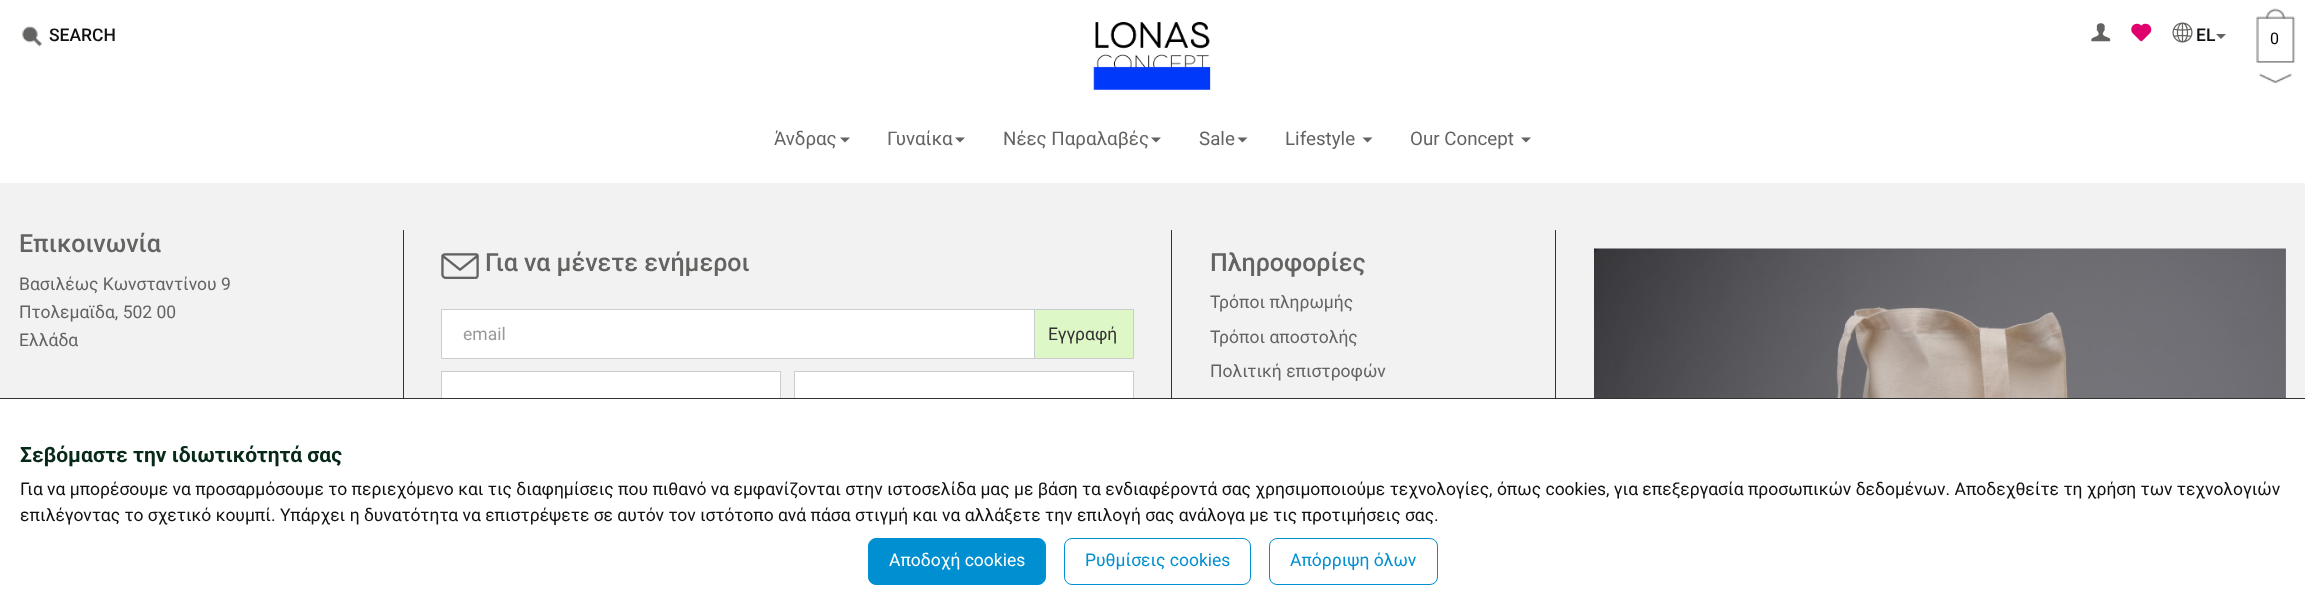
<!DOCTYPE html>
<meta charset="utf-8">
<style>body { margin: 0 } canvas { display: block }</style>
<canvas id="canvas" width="2305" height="613"></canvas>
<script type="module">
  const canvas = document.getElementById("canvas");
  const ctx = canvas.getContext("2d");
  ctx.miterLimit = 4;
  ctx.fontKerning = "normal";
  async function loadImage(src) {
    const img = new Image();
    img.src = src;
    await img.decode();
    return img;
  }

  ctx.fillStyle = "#f2f2f2";
  ctx.fillRect(0, 0, 2305, 613);
  ctx.fillStyle = "#ffffff";
  ctx.fillRect(0, 0, 2305, 183);
  ctx.drawImage(await loadImage("img1.png"), 22, 26, 21, 21);
  ctx.font = "500 17.5px Roboto";
  ctx.fillStyle = "#111111";
  ctx.fillText("SEARCH", 49, 41);
  ctx.drawImage(await loadImage("img2.png"), 2091, 23, 20, 19);
  ctx.drawImage(await loadImage("img3.png"), 2131, 23, 21, 19);
  ctx.drawImage(await loadImage("img4.png"), 2172, 22, 21, 21);
  ctx.fillText("EL", 2196, 41);
  ctx.fillStyle = "#636361";
  ctx.beginPath();
  ctx.moveTo(2216, 34);
  ctx.lineTo(2226, 34);
  ctx.lineTo(2221, 39);
  ctx.closePath();
  ctx.fill();
  ctx.drawImage(await loadImage("img5.png"), 2256, 8, 40, 76);
  ctx.font = "16px Roboto";
  ctx.fillStyle = "#000000";
  ctx.fillText("0", 2270, 44);
  ctx.drawImage(await loadImage("img6.png"), 1093, 22, 118, 68);
  ctx.font = "18.75px Roboto";
  ctx.fillStyle = "#636361";
  ctx.fillText("Άνδρας", 774, 145);
  ctx.beginPath();
  ctx.moveTo(840, 137.5);
  ctx.lineTo(850, 137.5);
  ctx.lineTo(845, 142.5);
  ctx.closePath();
  ctx.fill();
  ctx.fillText("Γυναίκα", 887, 145);
  ctx.beginPath();
  ctx.moveTo(955, 137.5);
  ctx.lineTo(965, 137.5);
  ctx.lineTo(960, 142.5);
  ctx.closePath();
  ctx.fill();
  ctx.fillText("Νέες Παραλαβές", 1003, 145);
  ctx.beginPath();
  ctx.moveTo(1151, 137.5);
  ctx.lineTo(1161, 137.5);
  ctx.lineTo(1156, 142.5);
  ctx.closePath();
  ctx.fill();
  ctx.fillText("Sale", 1199, 145);
  ctx.beginPath();
  ctx.moveTo(1237.5, 137.5);
  ctx.lineTo(1247.5, 137.5);
  ctx.lineTo(1242.5, 142.5);
  ctx.closePath();
  ctx.fill();
  ctx.fillText("Lifestyle", 1285, 145);
  ctx.beginPath();
  ctx.moveTo(1362.5, 137.5);
  ctx.lineTo(1372.5, 137.5);
  ctx.lineTo(1367.5, 142.5);
  ctx.closePath();
  ctx.fill();
  ctx.fillText("Our Concept", 1410, 145);
  ctx.beginPath();
  ctx.moveTo(1521, 137.5);
  ctx.lineTo(1531, 137.5);
  ctx.lineTo(1526, 142.5);
  ctx.closePath();
  ctx.fill();
  ctx.font = "500 25px Roboto";
  ctx.fillText("Επικοινωνία", 19, 252);
  ctx.font = "17.5px Roboto";
  ctx.fillText("Βασιλέως Κωνσταντίνου 9", 19, 290);
  ctx.fillText("Πτολεμαϊδα, 502 00", 19, 318);
  ctx.fillText("Ελλάδα", 19, 346);
  ctx.fillStyle = "#333333";
  ctx.fillRect(403, 230, 1, 168);
  ctx.drawImage(await loadImage("img7.png"), 441, 253, 38, 26);
  ctx.font = "500 25px Roboto";
  ctx.fillStyle = "#636361";
  ctx.fillText("Για να μένετε ενήμεροι", 485, 271);
  ctx.fillStyle = "#cccccc";
  ctx.fillRect(1034, 309, 100, 1);
  ctx.fillRect(1133, 309, 1, 50);
  ctx.fillRect(1034, 358, 100, 1);
  ctx.fillStyle = "#ffffff";
  ctx.beginPath();
  ctx.rect(441.5, 309.5, 593, 49);
  ctx.fill();
  ctx.strokeStyle = "#cccccc";
  ctx.stroke();
  ctx.font = "17.5px Roboto";
  ctx.fillStyle = "#999999";
  ctx.fillText("email", 463, 340);
  ctx.fillStyle = "#ddf7c6";
  ctx.fillRect(1035, 310, 98, 48);
  ctx.fillStyle = "#333333";
  ctx.fillText("Εγγραφή", 1048, 340);
  ctx.fillStyle = "#ffffff";
  ctx.fillRect(442, 372, 338, 26);
  ctx.strokeRect(441.5, 371.5, 339, 49);
  ctx.fillRect(795, 372, 338, 26);
  ctx.strokeRect(794.5, 371.5, 339, 49);
  ctx.fillStyle = "#333333";
  ctx.fillRect(1171, 230, 1, 168);
  ctx.font = "500 25px Roboto";
  ctx.fillStyle = "#636361";
  ctx.fillText("Πληροφορίες", 1210, 271);
  ctx.font = "17.5px Roboto";
  ctx.fillText("Τρόποι πληρωμής", 1210, 308);
  ctx.fillText("Τρόποι αποστολής", 1210, 343);
  ctx.fillText("Πολιτική επιστροφών", 1210, 377);
  ctx.fillStyle = "#333333";
  ctx.fillRect(1555, 230, 1, 168);
  ctx.drawImage(await loadImage("img8.png"), 1594, 248, 692, 150);
  ctx.fillStyle = "#ffffff";
  ctx.fillRect(0, 399, 2305, 214);
  ctx.fillStyle = "#333333";
  ctx.fillRect(0, 398, 2305, 1);
  ctx.font = "bold 21px Roboto";
  ctx.fillStyle = "#072917";
  ctx.fillText("Σεβόμαστε την ιδιωτικότητά σας", 20, 462);
  ctx.font = "17.5px Roboto";
  ctx.fillStyle = "#111111";
  ctx.fillText("Για να μπορέσουμε να προσαρμόσουμε το περιεχόμενο και τις διαφημίσεις που πιθανό να εμφανίζονται στην ιστοσελίδα μας με βάση τα ενδιαφέροντά σας χρησιμοποιούμε τεχνολογίες, όπως cookies, για επεξεργασία προσωπικών δεδομένων. Αποδεχθείτε τη χρήση των τεχνολογιών", 20, 495);
  ctx.fillText("επιλέγοντας το σχετικό κουμπί. Υπάρχει η δυνατότητα να επιστρέψετε σε αυτόν τον ιστότοπο ανά πάσα στιγμή και να αλλάξετε την επιλογή σας ανάλογα με τις προτιμήσεις σας.", 20, 521);
  ctx.fillStyle = "#008fd1";
  ctx.beginPath();
  ctx.roundRect(868.5, 538.5, 177, 46, 7.5);
  ctx.fill();
  ctx.strokeStyle = "#008fd1";
  ctx.stroke();
  ctx.fillStyle = "#ffffff";
  ctx.fillText("Αποδοχή cookies", 889, 566);
  ctx.beginPath();
  ctx.roundRect(1064.5, 538.5, 186, 46, 7.5);
  ctx.stroke();
  ctx.fillStyle = "#008fd1";
  ctx.fillText("Ρυθμίσεις cookies", 1085, 566);
  ctx.beginPath();
  ctx.roundRect(1269.5, 538.5, 168, 46, 7.5);
  ctx.stroke();
  ctx.fillText("Απόρριψη όλων", 1290, 566);
</script>
